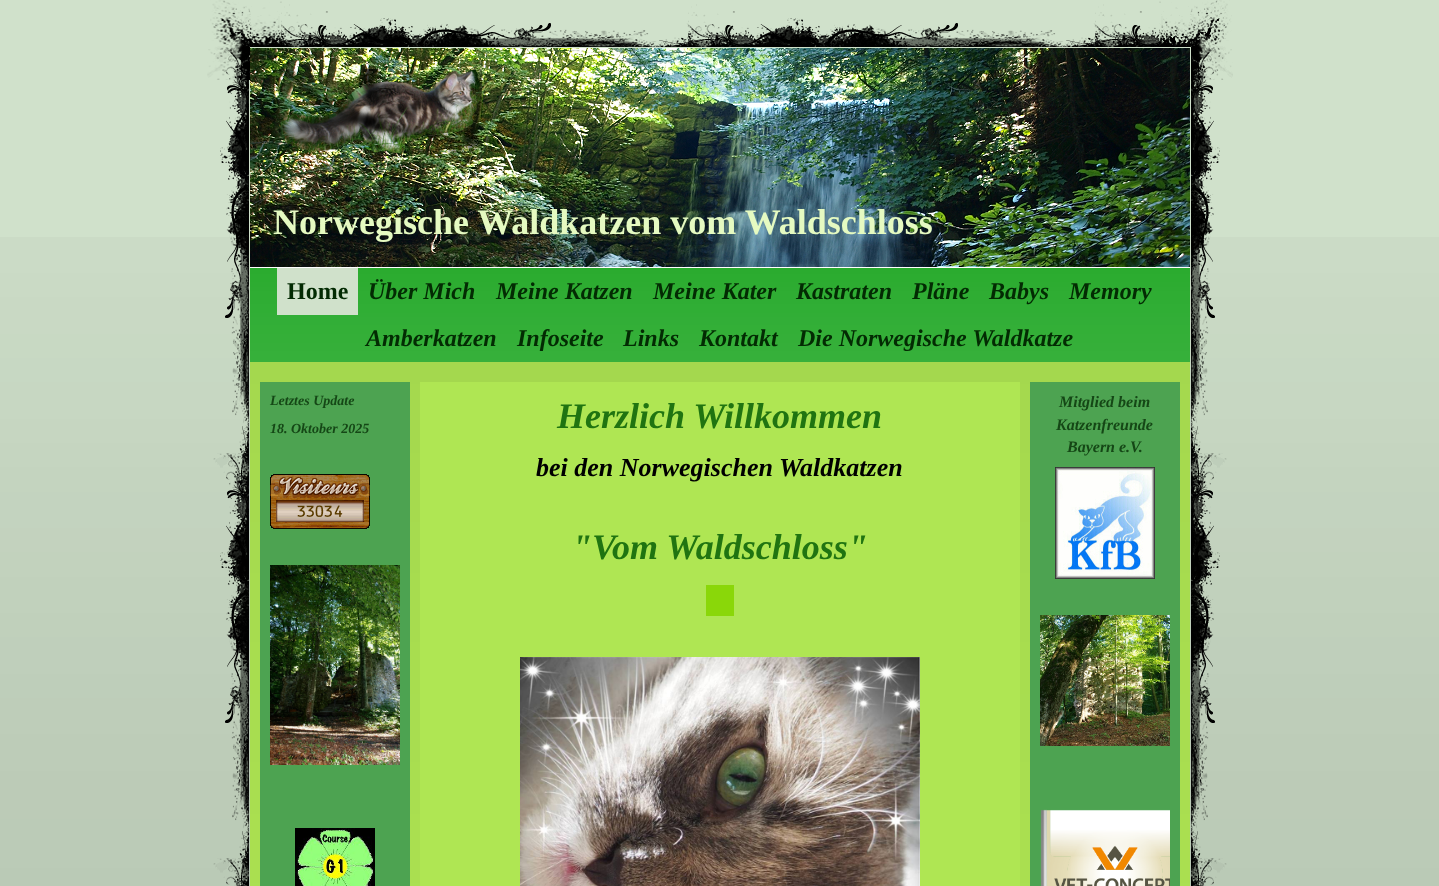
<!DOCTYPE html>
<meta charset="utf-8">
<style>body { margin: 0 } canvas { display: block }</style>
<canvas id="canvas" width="1439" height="886"></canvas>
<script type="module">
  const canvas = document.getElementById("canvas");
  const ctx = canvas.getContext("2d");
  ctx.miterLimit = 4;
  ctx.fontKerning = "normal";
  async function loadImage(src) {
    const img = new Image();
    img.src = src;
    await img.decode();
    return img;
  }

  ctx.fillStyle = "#d0e1cb";
  ctx.fillRect(0, 0, 1439, 886);
  ctx.drawImage(await loadImage("img1.png"), 0, 237, 1439, 649);
  ctx.drawImage(await loadImage("img2.png"), 210, 0, 41, 48);
  ctx.drawImage(await loadImage("img3.png"), 1190, 0, 42, 48);
  ctx.drawImage(await loadImage("img4.png"), 250, 1, 32, 46);
  ctx.drawImage(await loadImage("img5.png"), 1159, 1, 31, 46);
  ctx.drawImage(await loadImage("img6.png"), 281, 4, 878, 43);
  ctx.drawImage(await loadImage("img7.png"), 213, 48, 36, 838);
  ctx.drawImage(await loadImage("img8.png"), 207, 48, 43, 32);
  ctx.drawImage(await loadImage("img9.png"), 1191, 48, 36, 838);
  ctx.drawImage(await loadImage("img10.png"), 1191, 48, 42, 32);
  ctx.fillStyle = "#afe653";
  ctx.fillRect(250, 362, 940, 524);
  ctx.drawImage(await loadImage("img11.png"), 250, 362, 940, 524);
  ctx.fillStyle = "#069d0b";
  ctx.fillRect(250, 268, 940, 94);
  ctx.drawImage(await loadImage("img12.png"), 250, 268, 940, 94);
  ctx.drawImage(await loadImage("img13.png"), 250, 48, 940, 220);
  ctx.font = "bold 36px Liberation Serif";
  ctx.fillStyle = "#e5fac1";
  ctx.fillText("Norwegische Waldkatzen vom Waldschloss", 273, 234);
  ctx.fillStyle = "#d0e1cb";
  ctx.fillRect(277, 268, 81, 47);
  ctx.font = "bold 24px Liberation Serif";
  ctx.fillStyle = "#032b03";
  ctx.fillText("Home", 287, 299);
  ctx.font = "italic bold 24px Liberation Serif";
  ctx.fillText("Über Mich", 368, 299);
  ctx.fillText("Meine Katzen", 496, 299);
  ctx.fillText("Meine Kater", 653, 299);
  ctx.fillText("Kastraten", 796, 299);
  ctx.fillText("Pläne", 912, 299);
  ctx.fillText("Babys", 989, 299);
  ctx.fillText("Memory", 1069, 299);
  ctx.fillText("Amberkatzen", 366, 346);
  ctx.fillText("Infoseite", 517, 346);
  ctx.fillText("Links", 623, 346);
  ctx.fillText("Kontakt", 699, 346);
  ctx.fillText("Die Norwegische Waldkatze", 798, 346);
  ctx.fillStyle = "#4da351";
  ctx.fillRect(260, 382, 150, 504);
  ctx.font = "italic bold 14px Liberation Serif";
  ctx.fillStyle = "#154716";
  ctx.fillText("Letztes Update", 270, 405);
  ctx.fillText("18. Oktober 2025", 270, 433);
  ctx.drawImage(await loadImage("img14.png"), 270, 474, 100, 55);
  ctx.drawImage(await loadImage("img15.png"), 270, 565, 130, 200);
  ctx.drawImage(await loadImage("img16.png"), 295, 828, 80, 58);
  ctx.fillStyle = "#afe653";
  ctx.fillRect(420, 382, 600, 504);
  ctx.font = "italic bold 36px Liberation Serif";
  ctx.fillStyle = "#207411";
  ctx.fillText("Herzlich Willkommen", 557, 428);
  ctx.font = "italic bold 26px Liberation Serif";
  ctx.fillStyle = "#000000";
  ctx.fillText("bei den Norwegischen Waldkatzen", 536, 476);
  ctx.font = "italic bold 36px Liberation Serif";
  ctx.fillStyle = "#207411";
  ctx.fillText("\"Vom Waldschloss\"", 572, 559);
  ctx.fillStyle = "#8ad709";
  ctx.fillRect(706, 585, 28, 31);
  ctx.drawImage(await loadImage("img17.png"), 520, 657, 400, 229);
  ctx.fillStyle = "#4da351";
  ctx.fillRect(1030, 382, 150, 504);
  ctx.font = "italic bold 16px Liberation Serif";
  ctx.fillStyle = "#154716";
  ctx.fillText("Mitglied beim", 1059, 407);
  ctx.fillText("Katzenfreunde", 1056, 430);
  ctx.fillText("Bayern e.V.", 1067, 452);
  ctx.drawImage(await loadImage("img18.png"), 1055, 467, 100, 112);
  ctx.drawImage(await loadImage("img19.png"), 1040, 615, 130, 131);
  ctx.drawImage(await loadImage("img20.png"), 1040, 809, 130, 77);
</script>
